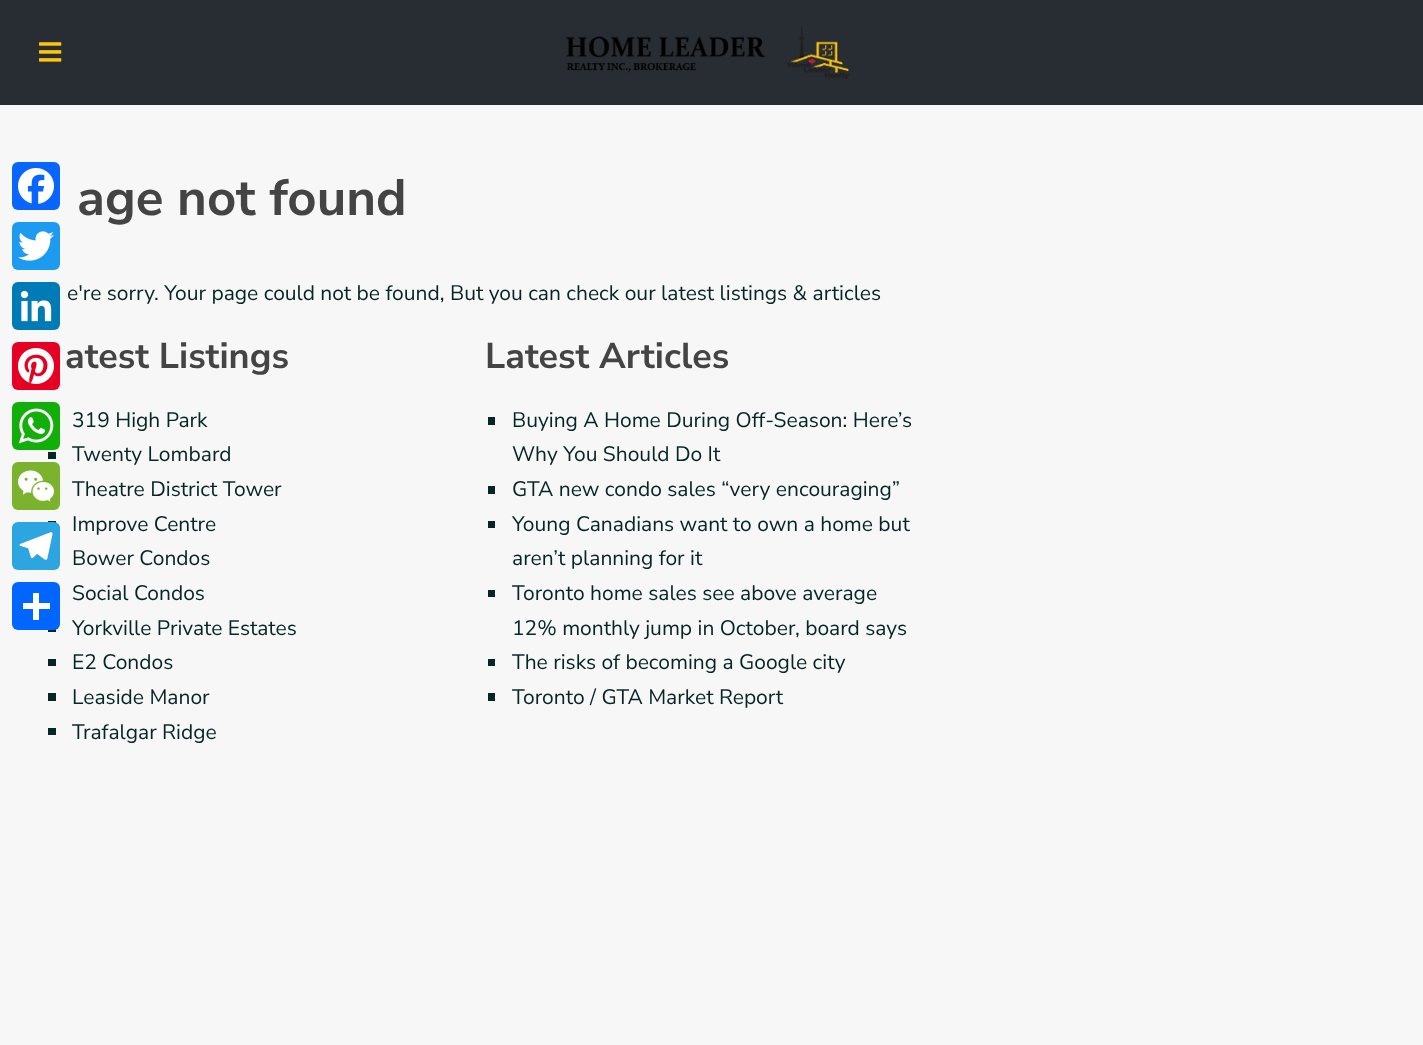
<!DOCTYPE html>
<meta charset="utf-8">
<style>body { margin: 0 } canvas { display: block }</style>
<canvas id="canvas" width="1423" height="1045"></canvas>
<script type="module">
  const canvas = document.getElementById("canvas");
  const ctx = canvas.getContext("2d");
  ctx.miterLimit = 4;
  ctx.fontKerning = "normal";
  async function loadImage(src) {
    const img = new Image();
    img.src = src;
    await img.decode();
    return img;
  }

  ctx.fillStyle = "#f7f7f7";
  ctx.fillRect(0, 0, 1423, 1045);
  ctx.fillStyle = "#0866ff";
  ctx.beginPath();
  ctx.roundRect(12, 162, 48, 48, 6);
  ctx.fill();
  ctx.drawImage(await loadImage("img1.png"), 18, 168, 36, 36);
  ctx.fillStyle = "#1d9bf0";
  ctx.beginPath();
  ctx.roundRect(12, 222, 48, 48, 6);
  ctx.fill();
  ctx.drawImage(await loadImage("img2.png"), 18, 231, 36, 30);
  ctx.fillStyle = "#007bb5";
  ctx.beginPath();
  ctx.roundRect(12, 282, 48, 48, 6);
  ctx.fill();
  ctx.drawImage(await loadImage("img3.png"), 20, 290, 32, 32);
  ctx.fillStyle = "#e60023";
  ctx.beginPath();
  ctx.roundRect(12, 342, 48, 48, 6);
  ctx.fill();
  ctx.drawImage(await loadImage("img4.png"), 18, 348, 36, 36);
  ctx.fillStyle = "#12af0a";
  ctx.beginPath();
  ctx.roundRect(12, 402, 48, 48, 6);
  ctx.fill();
  ctx.drawImage(await loadImage("img5.png"), 18, 408, 36, 36);
  ctx.fillStyle = "#7bb32e";
  ctx.beginPath();
  ctx.roundRect(12, 462, 48, 48, 6);
  ctx.fill();
  ctx.drawImage(await loadImage("img6.png"), 18, 470, 36, 32);
  ctx.fillStyle = "#062626";
  ctx.fillRect(48, 521, 8, 2);
  ctx.fillStyle = "#2ca5e0";
  ctx.beginPath();
  ctx.roundRect(12, 522, 48, 48, 6);
  ctx.fill();
  ctx.drawImage(await loadImage("img7.png"), 19, 532, 34, 28);
  ctx.fillStyle = "#062626";
  ctx.fillRect(48, 629, 8, 3);
  ctx.fillStyle = "#0166ff";
  ctx.beginPath();
  ctx.roundRect(12, 582, 48, 48, 6);
  ctx.fill();
  ctx.fillStyle = "#ffffff";
  ctx.fillRect(33, 593, 6, 27);
  ctx.fillRect(23, 603, 27, 6);
  ctx.fillStyle = "#282d33";
  ctx.fillRect(0, 0, 1423, 105);
  ctx.drawImage(await loadImage("img8.png"), 39, 42, 23, 20);
  ctx.drawImage(await loadImage("img9.png"), 566, 26, 283, 53);
  ctx.font = "bold 51px Nunito Sans";
  ctx.fillStyle = "#444444";
  ctx.fillText("age not found", 77, 215);
  ctx.font = "21px Nunito Sans";
  ctx.fillStyle = "#062626";
  ctx.fillText("e're sorry. Your page could not be found, But you can check our latest listings & articles", 67, 300);
  ctx.font = "bold 36px Nunito Sans";
  ctx.fillStyle = "#444444";
  ctx.fillText("atest Listings", 65, 368);
  ctx.font = "21px Nunito Sans";
  ctx.fillStyle = "#062626";
  ctx.fillText("319 High Park", 72, 427);
  ctx.fillRect(48, 452, 8, 7);
  ctx.fillText("Twenty Lombard", 72, 461);
  ctx.fillText("Theatre District Tower", 72, 496);
  ctx.fillText("Improve Centre", 72, 531);
  ctx.fillText("Bower Condos", 72, 565);
  ctx.fillText("Social Condos", 72, 600);
  ctx.fillText("Yorkville Private Estates", 72, 635);
  ctx.fillRect(48, 659, 8, 7);
  ctx.fillText("E2 Condos", 72, 669);
  ctx.fillRect(48, 693, 8, 8);
  ctx.fillText("Leaside Manor", 72, 704);
  ctx.fillRect(48, 728, 8, 7);
  ctx.fillText("Trafalgar Ridge", 72, 739);
  ctx.font = "bold 36px Nunito Sans";
  ctx.fillStyle = "#444444";
  ctx.fillText("Latest Articles", 485, 368);
  ctx.fillStyle = "#062626";
  ctx.fillRect(488, 417, 7, 8);
  ctx.font = "21px Nunito Sans";
  ctx.fillText("Buying A Home During Off-Season: Here’s", 512, 427);
  ctx.fillText("Why You Should Do It", 512, 461);
  ctx.fillRect(488, 486, 7, 8);
  ctx.fillText("GTA new condo sales “very encouraging”", 512, 496);
  ctx.fillRect(488, 521, 7, 7);
  ctx.fillText("Young Canadians want to own a home but", 512, 531);
  ctx.fillText("aren’t planning for it", 512, 565);
  ctx.fillRect(488, 590, 7, 7);
  ctx.fillText("Toronto home sales see above average", 512, 600);
  ctx.fillText("12% monthly jump in October, board says", 512, 635);
  ctx.fillRect(488, 659, 7, 7);
  ctx.fillText("The risks of becoming a Google city", 512, 669);
  ctx.fillRect(488, 693, 7, 8);
  ctx.fillText("Toronto / GTA Market Report", 512, 704);
</script>
